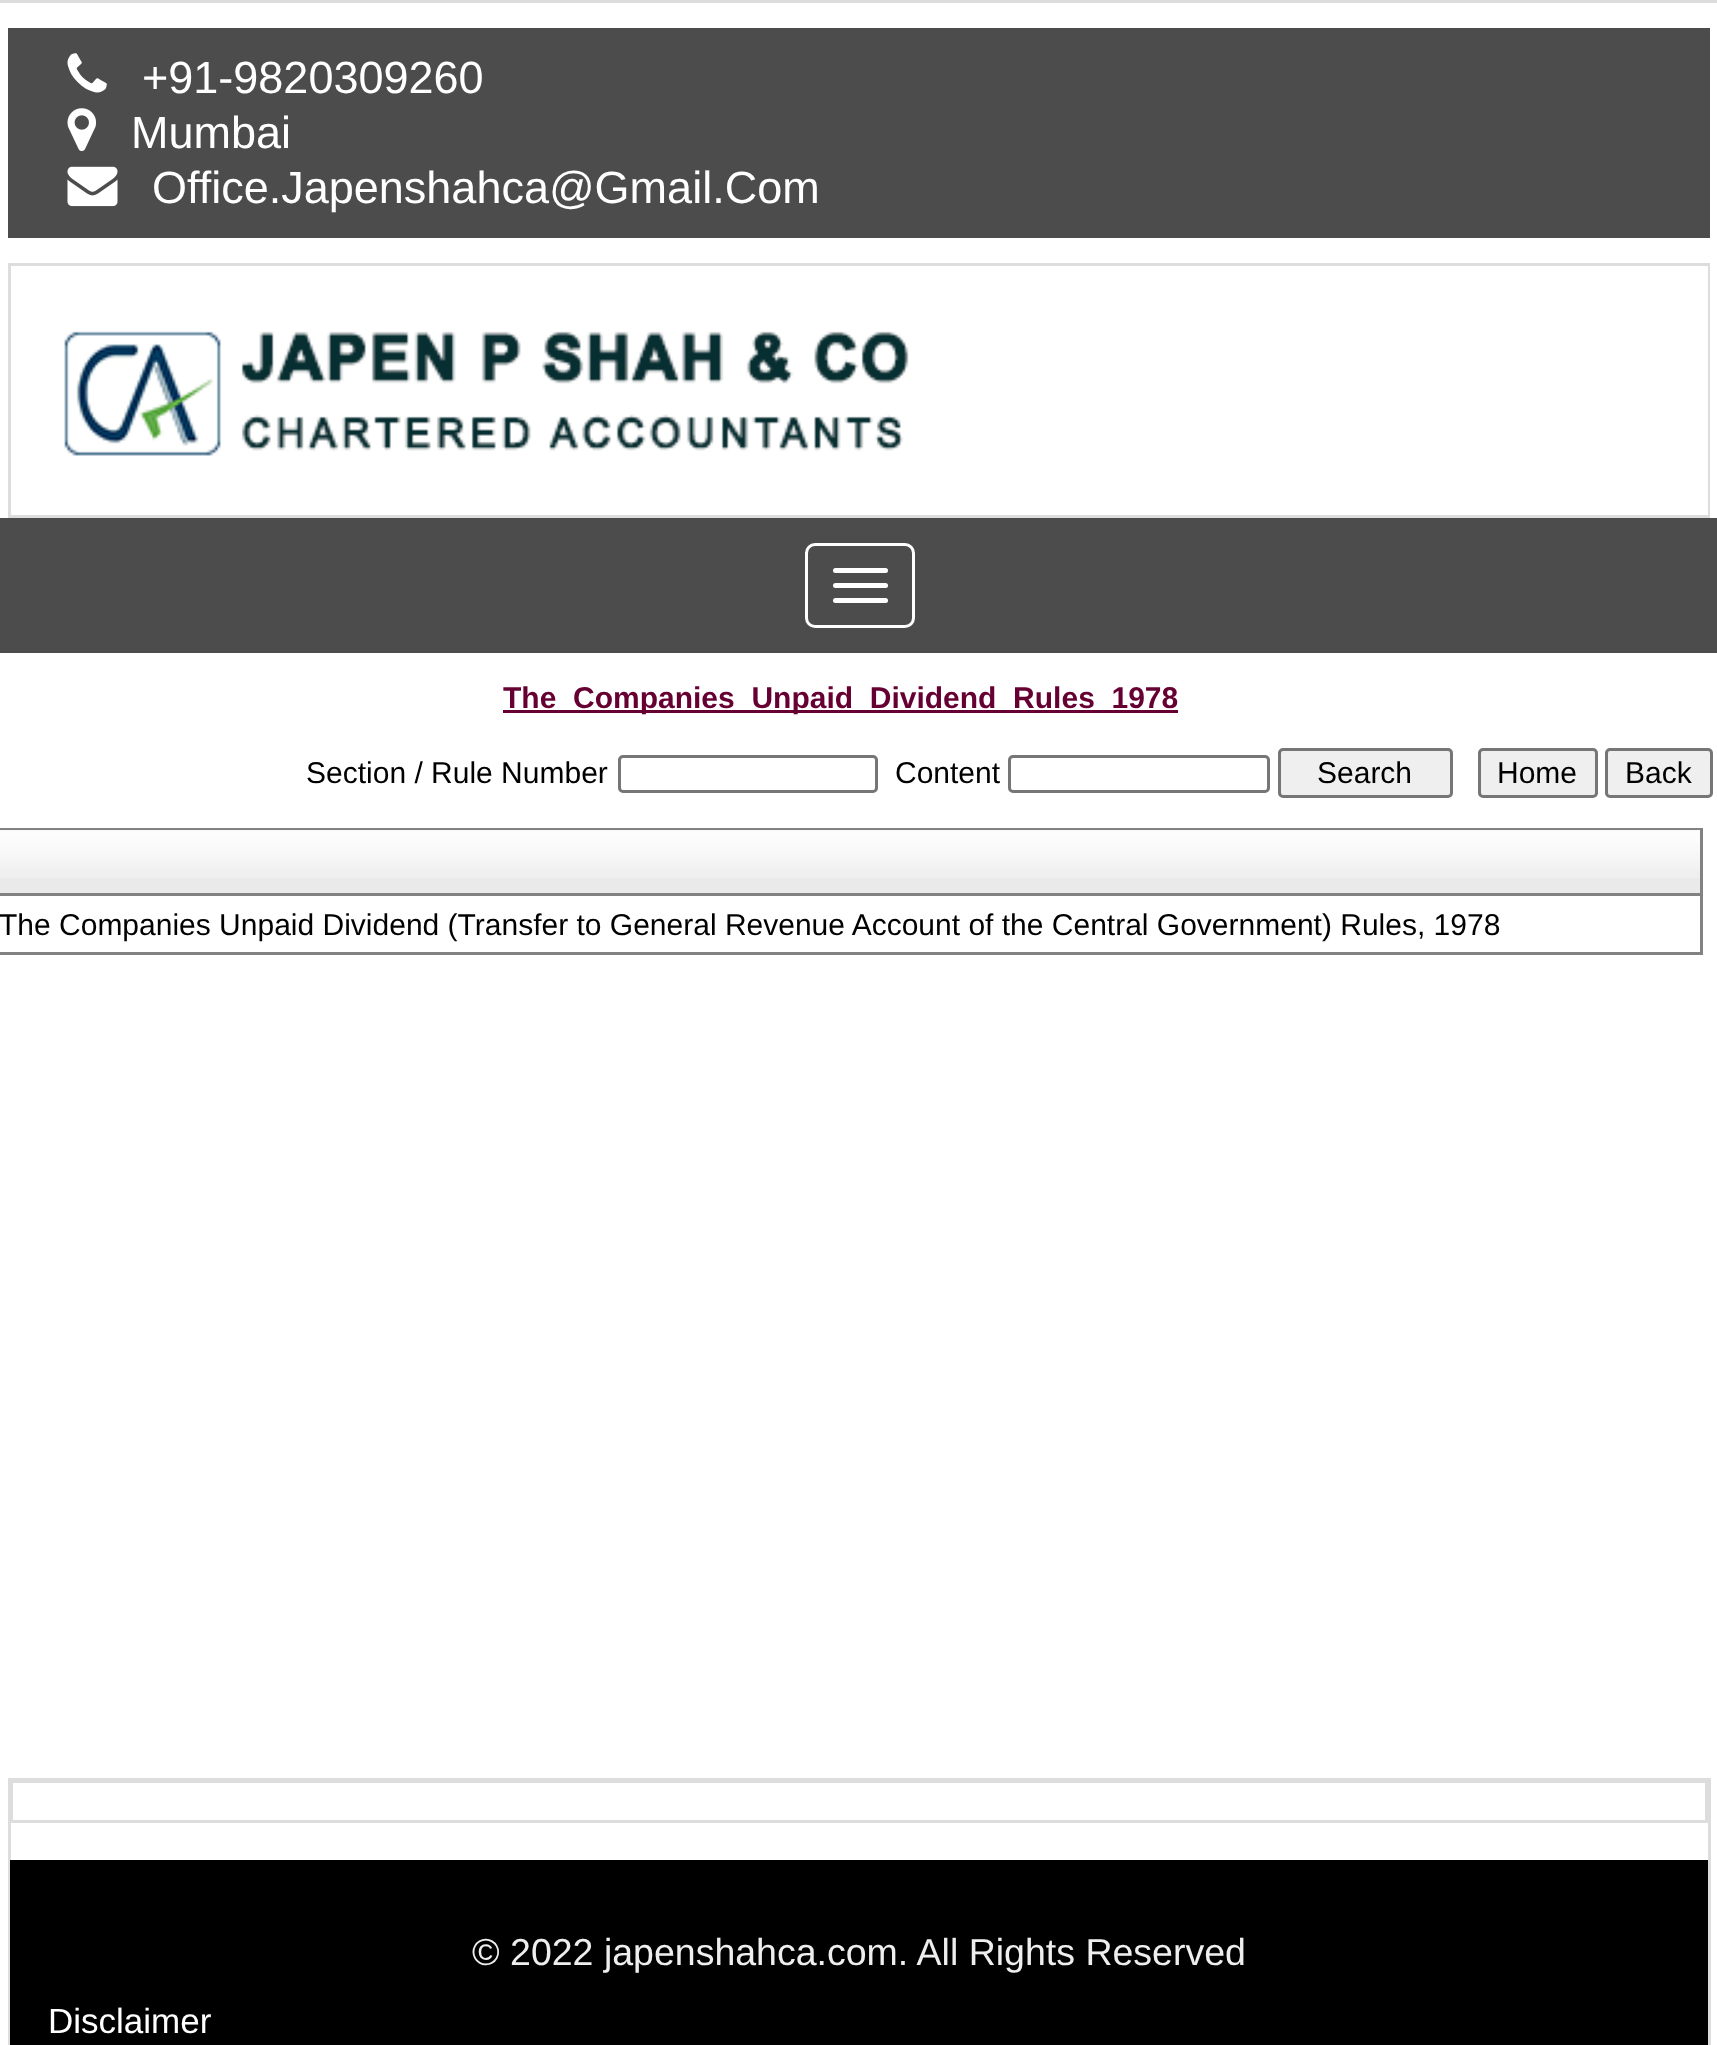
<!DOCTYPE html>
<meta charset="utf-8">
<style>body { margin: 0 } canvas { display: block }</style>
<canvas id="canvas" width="1717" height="2045"></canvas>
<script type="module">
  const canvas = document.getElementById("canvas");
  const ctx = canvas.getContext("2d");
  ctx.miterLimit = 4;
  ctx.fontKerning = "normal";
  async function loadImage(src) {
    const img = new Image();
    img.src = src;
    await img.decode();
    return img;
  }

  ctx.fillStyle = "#ffffff";
  ctx.fillRect(0, 0, 1717, 2045);
  ctx.strokeStyle = "#dddddd";
  ctx.lineWidth = 3;
  ctx.strokeRect(-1.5, 1.5, 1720, 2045);
  ctx.fillStyle = "#4c4c4c";
  ctx.fillRect(8, 28, 1702, 210);
  ctx.drawImage(await loadImage("img1.png"), 67, 53, 40, 40);
  ctx.font = "45px Liberation Sans";
  ctx.fillStyle = "#ffffff";
  ctx.fillText("+91-9820309260", 142, 93);
  ctx.drawImage(await loadImage("img2.png"), 67, 108, 30, 44);
  ctx.fillText("Mumbai", 131, 148);
  ctx.drawImage(await loadImage("img3.png"), 67, 166, 51, 41);
  ctx.fillText("Office.Japenshahca@Gmail.Com", 152, 203);
  ctx.fillStyle = "#dddddd";
  ctx.fillRect(8, 263, 1702, 3);
  ctx.fillRect(1708, 263, 2, 255);
  ctx.fillRect(8, 515, 1702, 3);
  ctx.fillRect(8, 263, 3, 255);
  ctx.drawImage(await loadImage("img4.png"), 64, 331, 845, 125);
  ctx.fillStyle = "#4c4c4c";
  ctx.fillRect(0, 518, 1717, 135);
  ctx.beginPath();
  ctx.roundRect(806.5, 544.5, 107, 82, 8.5);
  ctx.strokeStyle = "#ffffff";
  ctx.stroke();
  ctx.fillStyle = "#ffffff";
  ctx.beginPath();
  ctx.roundRect(833, 568, 55, 5, 2.5);
  ctx.fill();
  ctx.beginPath();
  ctx.roundRect(833, 583, 55, 5, 2.5);
  ctx.fill();
  ctx.beginPath();
  ctx.roundRect(833, 598, 55, 5, 2.5);
  ctx.fill();
  ctx.fillStyle = "#660033";
  ctx.fillRect(503, 710, 675, 3);
  ctx.font = "bold 30px Liberation Sans";
  ctx.fillText("The_Companies_Unpaid_Dividend_Rules_1978", 503, 708);
  ctx.font = "30px Liberation Sans";
  ctx.fillStyle = "#000000";
  ctx.fillText("Section / Rule Number", 306, 783);
  ctx.beginPath();
  ctx.roundRect(619.5, 756.5, 257, 35, 3.5);
  ctx.strokeStyle = "#767676";
  ctx.stroke();
  ctx.fillText("Content", 895, 783);
  ctx.beginPath();
  ctx.roundRect(1009.5, 756.5, 259, 35, 3.5);
  ctx.stroke();
  ctx.fillStyle = "#efefef";
  ctx.beginPath();
  ctx.roundRect(1279.5, 749.5, 172, 47, 3.5);
  ctx.fill();
  ctx.stroke();
  ctx.fillStyle = "#000000";
  ctx.fillText("Search", 1317, 783);
  ctx.fillStyle = "#efefef";
  ctx.beginPath();
  ctx.roundRect(1479.5, 749.5, 117, 47, 3.5);
  ctx.fill();
  ctx.stroke();
  ctx.fillStyle = "#000000";
  ctx.fillText("Home", 1497, 783);
  ctx.fillStyle = "#efefef";
  ctx.beginPath();
  ctx.roundRect(1606.5, 749.5, 105, 47, 3.5);
  ctx.fill();
  ctx.stroke();
  ctx.fillStyle = "#000000";
  ctx.fillText("Back", 1625, 783);
  ctx.strokeStyle = "#828282";
  ctx.strokeRect(-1.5, 829.5, 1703, 124);
  ctx.fillStyle = "#eaeaea";
  ctx.fillRect(0, 830, 1700, 63);
  ctx.drawImage(await loadImage("img5.png"), 0, 830, 1700, 48);
  ctx.fillStyle = "#828282";
  ctx.fillRect(0, 893, 1700, 3);
  ctx.fillStyle = "#000000";
  ctx.fillText("The Companies Unpaid Dividend (Transfer to General Revenue Account of the Central Government) Rules, 1978", -1, 935);
  ctx.fillStyle = "#dddddd";
  ctx.fillRect(8, 1778, 1702, 2);
  ctx.fillRect(1708, 1778, 3, 267);
  ctx.fillRect(8, 1778, 3, 267);
  ctx.fillRect(10, 1780, 1698, 3);
  ctx.fillRect(1705, 1780, 3, 43);
  ctx.fillRect(10, 1820, 1698, 3);
  ctx.fillRect(11, 1780, 2, 43);
  ctx.fillStyle = "#000000";
  ctx.fillRect(10, 1860, 1698, 185);
  ctx.font = "37.5px Liberation Sans";
  ctx.fillStyle = "#eeeeee";
  ctx.fillText("© 2022 japenshahca.com. All Rights Reserved", 472, 1965);
  ctx.font = "35px Liberation Sans";
  ctx.fillStyle = "#ffffff";
  ctx.fillText("Disclaimer", 48, 2033);
</script>
